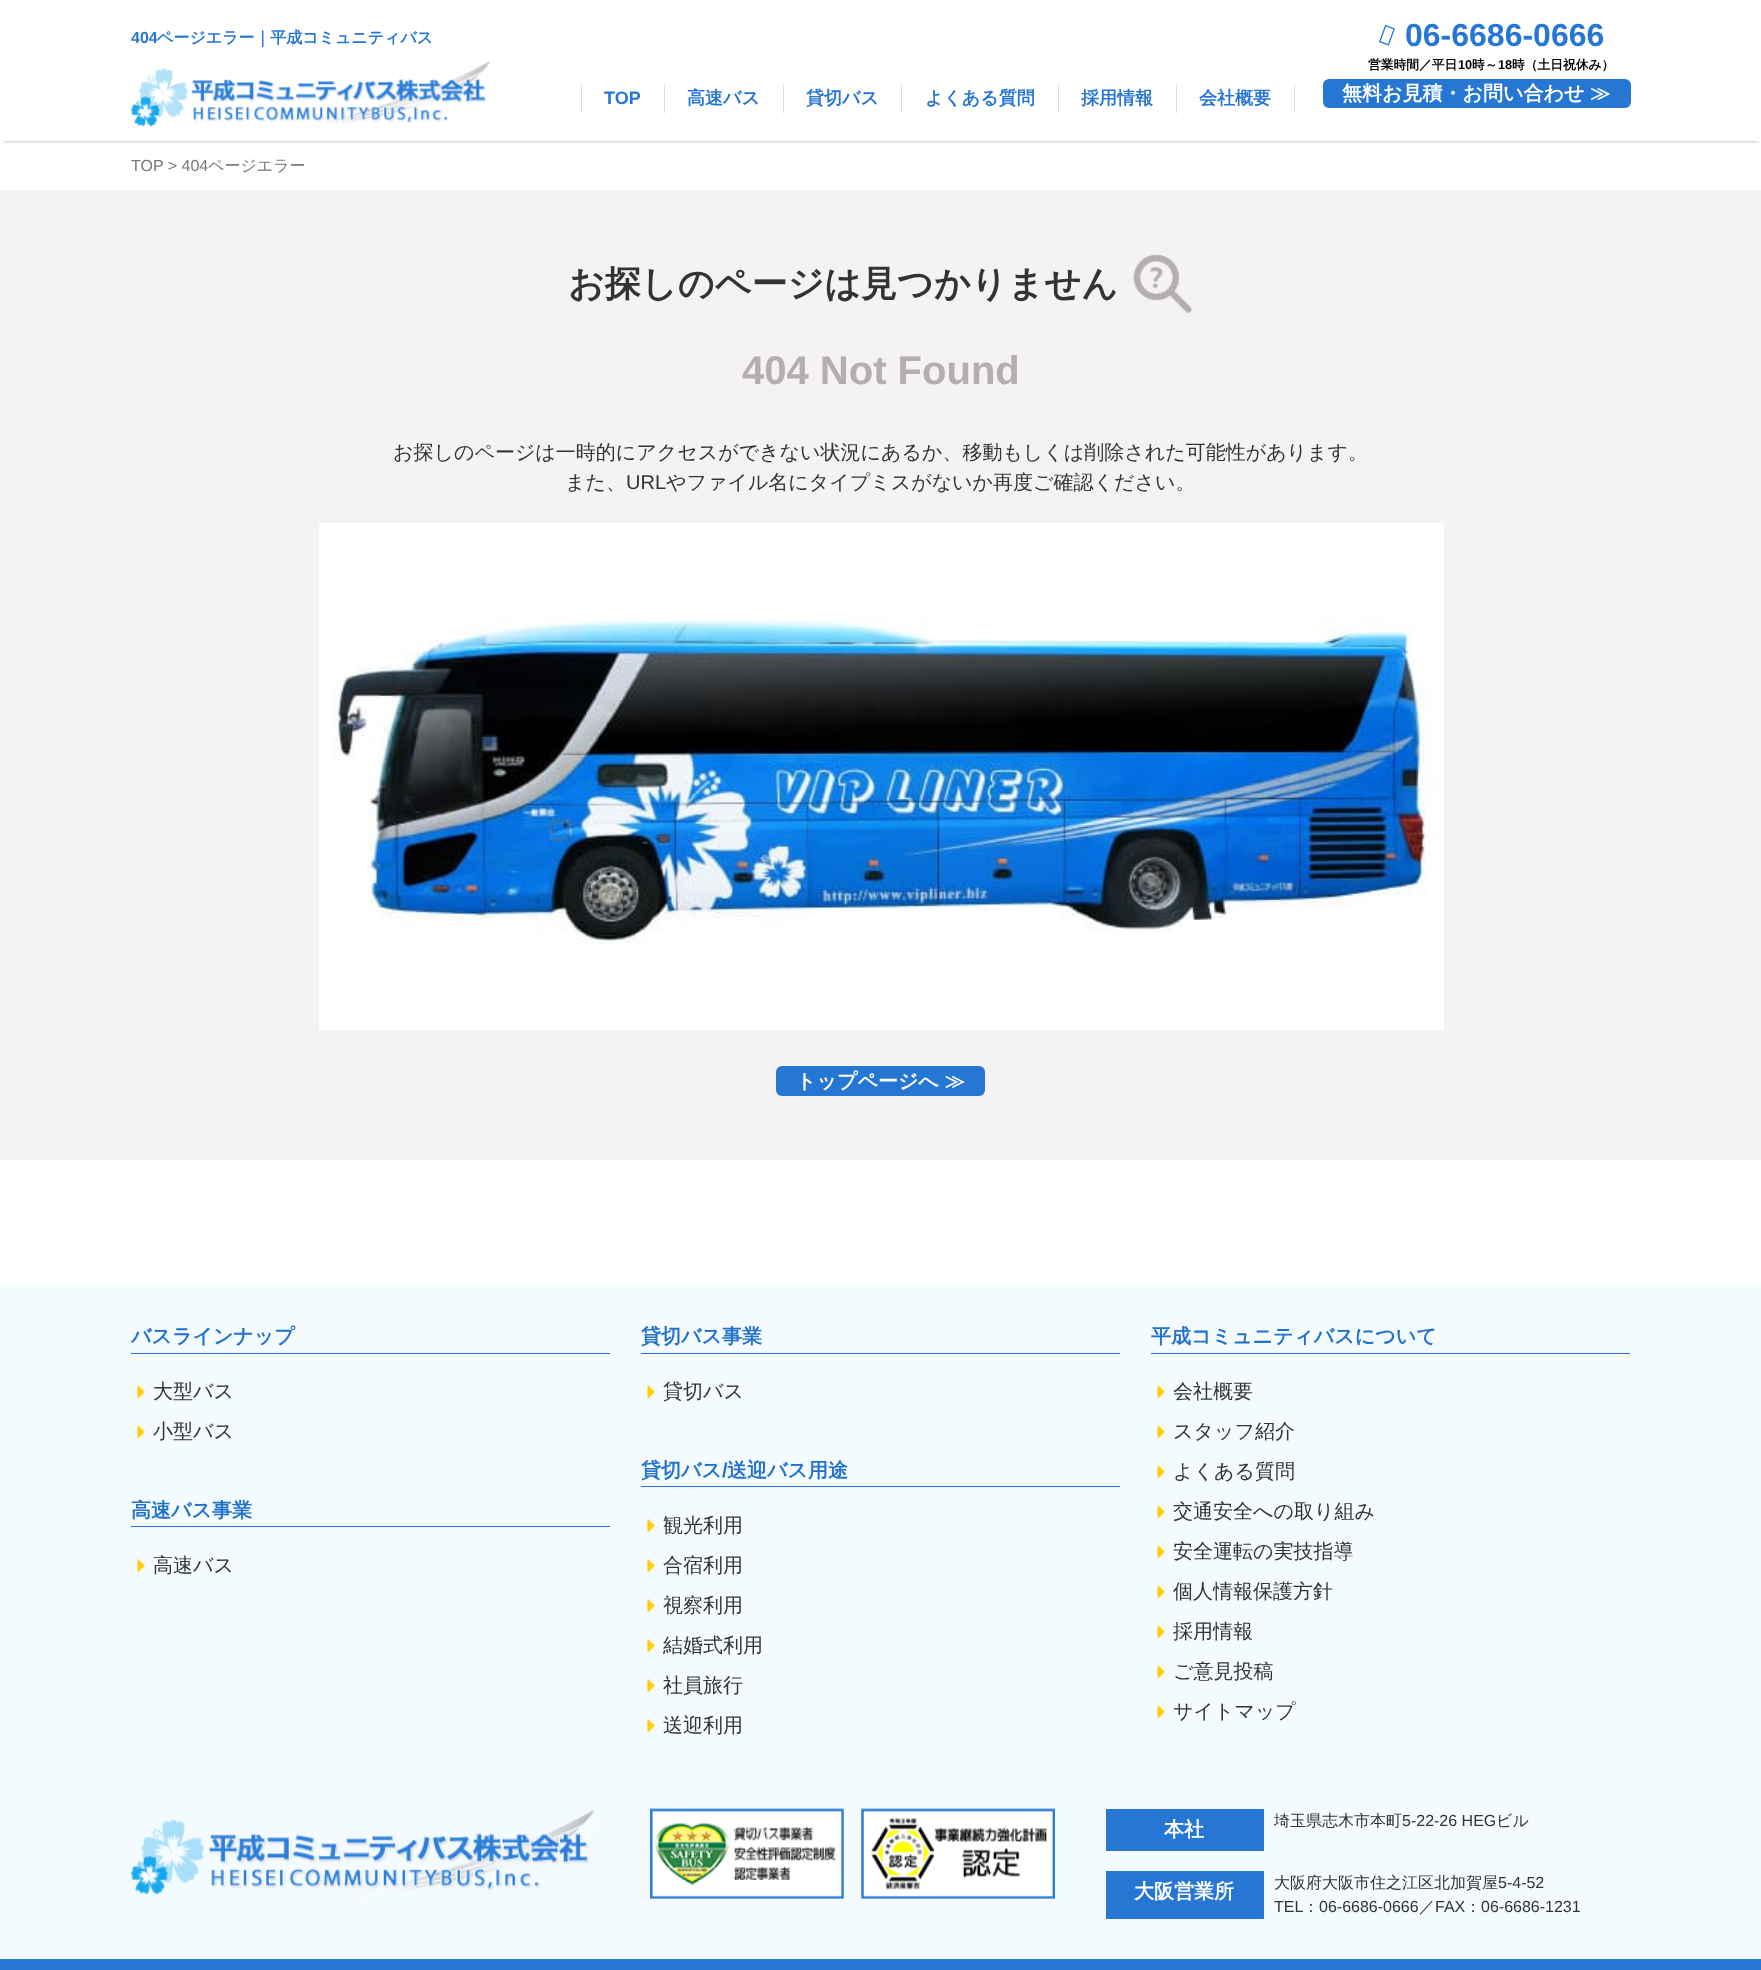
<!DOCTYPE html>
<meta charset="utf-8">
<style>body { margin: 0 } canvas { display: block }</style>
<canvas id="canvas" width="1761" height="1970"></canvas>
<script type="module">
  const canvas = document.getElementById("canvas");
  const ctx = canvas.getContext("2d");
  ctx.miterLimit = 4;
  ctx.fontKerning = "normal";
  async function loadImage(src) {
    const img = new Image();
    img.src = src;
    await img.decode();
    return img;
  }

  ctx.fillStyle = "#ffffff";
  ctx.fillRect(0, 0, 1761, 1970);
  ctx.font = "bold 16px Liberation Sans";
  ctx.fillStyle = "#2676d4";
  ctx.fillText("404", 131, 43);
  ctx.font = "bold 16px WenQuanYi Zen Hei";
  ctx.fillText("ページエラー｜平成コミュニティバス", 157, 43);
  ctx.drawImage(await loadImage("img1.png"), 1379, 25, 16, 21);
  ctx.font = "bold 32px Liberation Sans";
  ctx.fillText("06-6686-0666", 1405, 46);
  ctx.save();
  ctx.beginPath();
  ctx.rect(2, 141, 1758, 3);
  ctx.clip();
  ctx.fillStyle = "rgba(0, 0, 0, 0.6)";
  ctx.filter = "blur(2px)";
  ctx.beginPath();
  ctx.rect(4, 60, 1754, 80);
  ctx.fill();
  ctx.filter = "none";
  ctx.restore();
  ctx.font = "bold 12.75px WenQuanYi Zen Hei";
  ctx.fillStyle = "#000000";
  ctx.fillText("営業時間／平日", 1368, 69);
  ctx.font = "bold 12.75px Liberation Sans";
  ctx.fillText("10", 1458, 69);
  ctx.font = "bold 12.75px WenQuanYi Zen Hei";
  ctx.fillText("時～", 1472, 69);
  ctx.font = "bold 12.75px Liberation Sans";
  ctx.fillText("18", 1498, 69);
  ctx.font = "bold 12.75px WenQuanYi Zen Hei";
  ctx.fillText("時（土日祝休み）", 1512, 69);
  ctx.drawImage(await loadImage("img2.png"), 131, 61, 360, 68);
  ctx.fillStyle = "#dedede";
  ctx.fillRect(581, 85, 1, 28);
  ctx.fillRect(664, 85, 1, 28);
  ctx.font = "bold 18px Liberation Sans";
  ctx.fillStyle = "#2676d4";
  ctx.fillText("TOP", 604, 104);
  ctx.fillStyle = "#dedede";
  ctx.fillRect(783, 85, 1, 28);
  ctx.font = "bold 18px WenQuanYi Zen Hei";
  ctx.fillStyle = "#2676d4";
  ctx.fillText("高速バス", 687, 104);
  ctx.fillStyle = "#dedede";
  ctx.fillRect(901, 85, 1, 28);
  ctx.fillStyle = "#2676d4";
  ctx.fillText("貸切バス", 806, 104);
  ctx.fillStyle = "#dedede";
  ctx.fillRect(1058, 85, 1, 28);
  ctx.fillStyle = "#2676d4";
  ctx.fillText("よくある質問", 925, 104);
  ctx.fillStyle = "#dedede";
  ctx.fillRect(1176, 85, 1, 28);
  ctx.fillStyle = "#2676d4";
  ctx.fillText("採用情報", 1081, 104);
  ctx.fillStyle = "#dedede";
  ctx.fillRect(1294, 85, 1, 28);
  ctx.fillStyle = "#2676d4";
  ctx.fillText("会社概要", 1199, 104);
  ctx.beginPath();
  ctx.roundRect(1323, 79, 262, 29, [6, 0, 0, 6]);
  ctx.fill();
  ctx.beginPath();
  ctx.roundRect(1585, 79, 46, 29, [0, 6, 6, 0]);
  ctx.fill();
  ctx.font = "bold 20px WenQuanYi Zen Hei";
  ctx.fillStyle = "#ffffff";
  ctx.fillText("無料お見積・お問い合わせ ≫", 1342, 100);
  ctx.font = "16px Liberation Sans";
  ctx.fillStyle = "#777777";
  ctx.fillText("TOP > 404", 131, 171);
  ctx.font = "500 16px WenQuanYi Zen Hei";
  ctx.fillText("ページエラー", 208, 171);
  ctx.fillStyle = "#f4f2f2";
  ctx.fillRect(0, 190, 1761, 970);
  ctx.drawImage(await loadImage("img3.png"), 1133, 254, 59, 60);
  ctx.font = "bold 36px WenQuanYi Zen Hei";
  ctx.fillStyle = "#333333";
  ctx.fillText("お探しのページは見つかりません", 568, 296);
  ctx.font = "bold 40px Liberation Sans";
  ctx.fillStyle = "#b4aeae";
  ctx.fillText("404 Not Found", 742, 384);
  ctx.font = "500 20px WenQuanYi Zen Hei";
  ctx.fillStyle = "#333333";
  ctx.fillText("お探しのページは一時的にアクセスができない状況にあるか、移動もしくは削除された可能性があります。", 393, 459);
  ctx.fillText("また、", 565, 489);
  ctx.font = "20px Liberation Sans";
  ctx.fillText("URL", 626, 489);
  ctx.font = "500 20px WenQuanYi Zen Hei";
  ctx.fillText("やファイル名にタイプミスがないか再度ご確認ください。", 666, 489);
  ctx.fillStyle = "#ffffff";
  ctx.fillRect(319, 523, 1125, 507);
  ctx.drawImage(await loadImage("img4.png"), 331, 615, 1107, 329);
  ctx.fillStyle = "#2676d4";
  ctx.beginPath();
  ctx.roundRect(776, 1066, 163, 30, [6, 0, 0, 6]);
  ctx.fill();
  ctx.beginPath();
  ctx.roundRect(939, 1066, 46, 30, [0, 6, 6, 0]);
  ctx.fill();
  ctx.font = "bold 20px WenQuanYi Zen Hei";
  ctx.fillStyle = "#ffffff";
  ctx.fillText("トップページへ ≫", 796, 1088);
  ctx.fillStyle = "#f3fbff";
  ctx.fillRect(0, 1285, 1761, 674);
  ctx.fillStyle = "#2471cc";
  ctx.fillRect(131, 1353, 479, 1);
  ctx.fillText("バスラインナップ", 131, 1343);
  ctx.drawImage(await loadImage("img5.png"), 137, 1384, 8, 16);
  ctx.font = "500 20px WenQuanYi Zen Hei";
  ctx.fillStyle = "#333333";
  ctx.fillText("大型バス", 153, 1398);
  ctx.drawImage(await loadImage("img5.png"), 137, 1424, 8, 16);
  ctx.fillText("小型バス", 153, 1438);
  ctx.fillStyle = "#2471cc";
  ctx.fillRect(131, 1526, 479, 1);
  ctx.font = "bold 20px WenQuanYi Zen Hei";
  ctx.fillText("高速バス事業", 131, 1517);
  ctx.drawImage(await loadImage("img6.png"), 137, 1558, 8, 16);
  ctx.font = "500 20px WenQuanYi Zen Hei";
  ctx.fillStyle = "#333333";
  ctx.fillText("高速バス", 153, 1572);
  ctx.fillStyle = "#2471cc";
  ctx.fillRect(641, 1353, 479, 1);
  ctx.font = "bold 20px WenQuanYi Zen Hei";
  ctx.fillText("貸切バス事業", 641, 1343);
  ctx.drawImage(await loadImage("img5.png"), 647, 1384, 8, 16);
  ctx.font = "500 20px WenQuanYi Zen Hei";
  ctx.fillStyle = "#333333";
  ctx.fillText("貸切バス", 663, 1398);
  ctx.fillStyle = "#2471cc";
  ctx.fillRect(641, 1486, 479, 1);
  ctx.font = "bold 20px WenQuanYi Zen Hei";
  ctx.fillText("貸切バス", 641, 1477);
  ctx.font = "bold 20px Liberation Sans";
  ctx.fillText("/", 722, 1477);
  ctx.font = "bold 20px WenQuanYi Zen Hei";
  ctx.fillText("送迎バス用途", 727, 1477);
  ctx.drawImage(await loadImage("img6.png"), 647, 1518, 8, 16);
  ctx.font = "500 20px WenQuanYi Zen Hei";
  ctx.fillStyle = "#333333";
  ctx.fillText("観光利用", 663, 1532);
  ctx.drawImage(await loadImage("img6.png"), 647, 1558, 8, 16);
  ctx.fillText("合宿利用", 663, 1572);
  ctx.drawImage(await loadImage("img6.png"), 647, 1598, 8, 16);
  ctx.fillText("視察利用", 663, 1612);
  ctx.drawImage(await loadImage("img6.png"), 647, 1638, 8, 16);
  ctx.fillText("結婚式利用", 663, 1652);
  ctx.drawImage(await loadImage("img6.png"), 647, 1678, 8, 16);
  ctx.fillText("社員旅行", 663, 1692);
  ctx.drawImage(await loadImage("img6.png"), 647, 1718, 8, 16);
  ctx.fillText("送迎利用", 663, 1732);
  ctx.fillStyle = "#2471cc";
  ctx.fillRect(1151, 1353, 479, 1);
  ctx.font = "bold 20px WenQuanYi Zen Hei";
  ctx.fillText("平成コミュニティバスについて", 1151, 1343);
  ctx.drawImage(await loadImage("img5.png"), 1157, 1384, 8, 16);
  ctx.font = "500 20px WenQuanYi Zen Hei";
  ctx.fillStyle = "#333333";
  ctx.fillText("会社概要", 1173, 1398);
  ctx.drawImage(await loadImage("img5.png"), 1157, 1424, 8, 16);
  ctx.fillText("スタッフ紹介", 1173, 1438);
  ctx.drawImage(await loadImage("img5.png"), 1157, 1464, 8, 16);
  ctx.fillText("よくある質問", 1173, 1478);
  ctx.drawImage(await loadImage("img5.png"), 1157, 1504, 8, 16);
  ctx.fillText("交通安全への取り組み", 1173, 1518);
  ctx.drawImage(await loadImage("img5.png"), 1157, 1544, 8, 16);
  ctx.fillText("安全運転の実技指導", 1173, 1558);
  ctx.drawImage(await loadImage("img5.png"), 1157, 1584, 8, 16);
  ctx.fillText("個人情報保護方針", 1173, 1598);
  ctx.drawImage(await loadImage("img7.png"), 1157, 1624, 9, 15);
  ctx.fillText("採用情報", 1173, 1638);
  ctx.drawImage(await loadImage("img8.png"), 1157, 1664, 8, 16);
  ctx.fillText("ご意見投稿", 1173, 1678);
  ctx.drawImage(await loadImage("img8.png"), 1157, 1704, 8, 16);
  ctx.fillText("サイトマップ", 1173, 1718);
  ctx.drawImage(await loadImage("img9.png"), 131, 1809, 465, 89);
  ctx.drawImage(await loadImage("img10.png"), 650, 1808, 194, 91);
  ctx.drawImage(await loadImage("img11.png"), 861, 1808, 194, 91);
  ctx.fillStyle = "#2676d4";
  ctx.fillRect(1106, 1809, 158, 42);
  ctx.font = "bold 20px WenQuanYi Zen Hei";
  ctx.fillStyle = "#ffffff";
  ctx.fillText("本社", 1164, 1836);
  ctx.font = "500 16px WenQuanYi Zen Hei";
  ctx.fillStyle = "#333333";
  ctx.fillText("埼玉県志木市本町", 1274, 1826);
  ctx.font = "16px Liberation Sans";
  ctx.fillText("5-22-26 HEG", 1402, 1826);
  ctx.font = "500 16px WenQuanYi Zen Hei";
  ctx.fillText("ビル", 1496, 1826);
  ctx.fillStyle = "#2676d4";
  ctx.fillRect(1106, 1871, 158, 48);
  ctx.font = "bold 20px WenQuanYi Zen Hei";
  ctx.fillStyle = "#ffffff";
  ctx.fillText("大阪営業所", 1134, 1898);
  ctx.font = "500 16px WenQuanYi Zen Hei";
  ctx.fillStyle = "#333333";
  ctx.fillText("大阪府大阪市住之江区北加賀屋", 1274, 1888);
  ctx.font = "16px Liberation Sans";
  ctx.fillText("5-4-52", 1498, 1888);
  ctx.fillText("TEL", 1274, 1912);
  ctx.font = "500 16px WenQuanYi Zen Hei";
  ctx.fillText("：", 1303, 1912);
  ctx.font = "16px Liberation Sans";
  ctx.fillText("06-6686-0666", 1319, 1912);
  ctx.font = "500 16px WenQuanYi Zen Hei";
  ctx.fillText("／", 1419, 1912);
  ctx.font = "16px Liberation Sans";
  ctx.fillText("FAX", 1435, 1912);
  ctx.font = "500 16px WenQuanYi Zen Hei";
  ctx.fillText("：", 1465, 1912);
  ctx.font = "16px Liberation Sans";
  ctx.fillText("06-6686-1231", 1481, 1912);
  ctx.fillStyle = "#2676d4";
  ctx.fillRect(0, 1959, 1761, 11);
</script>
